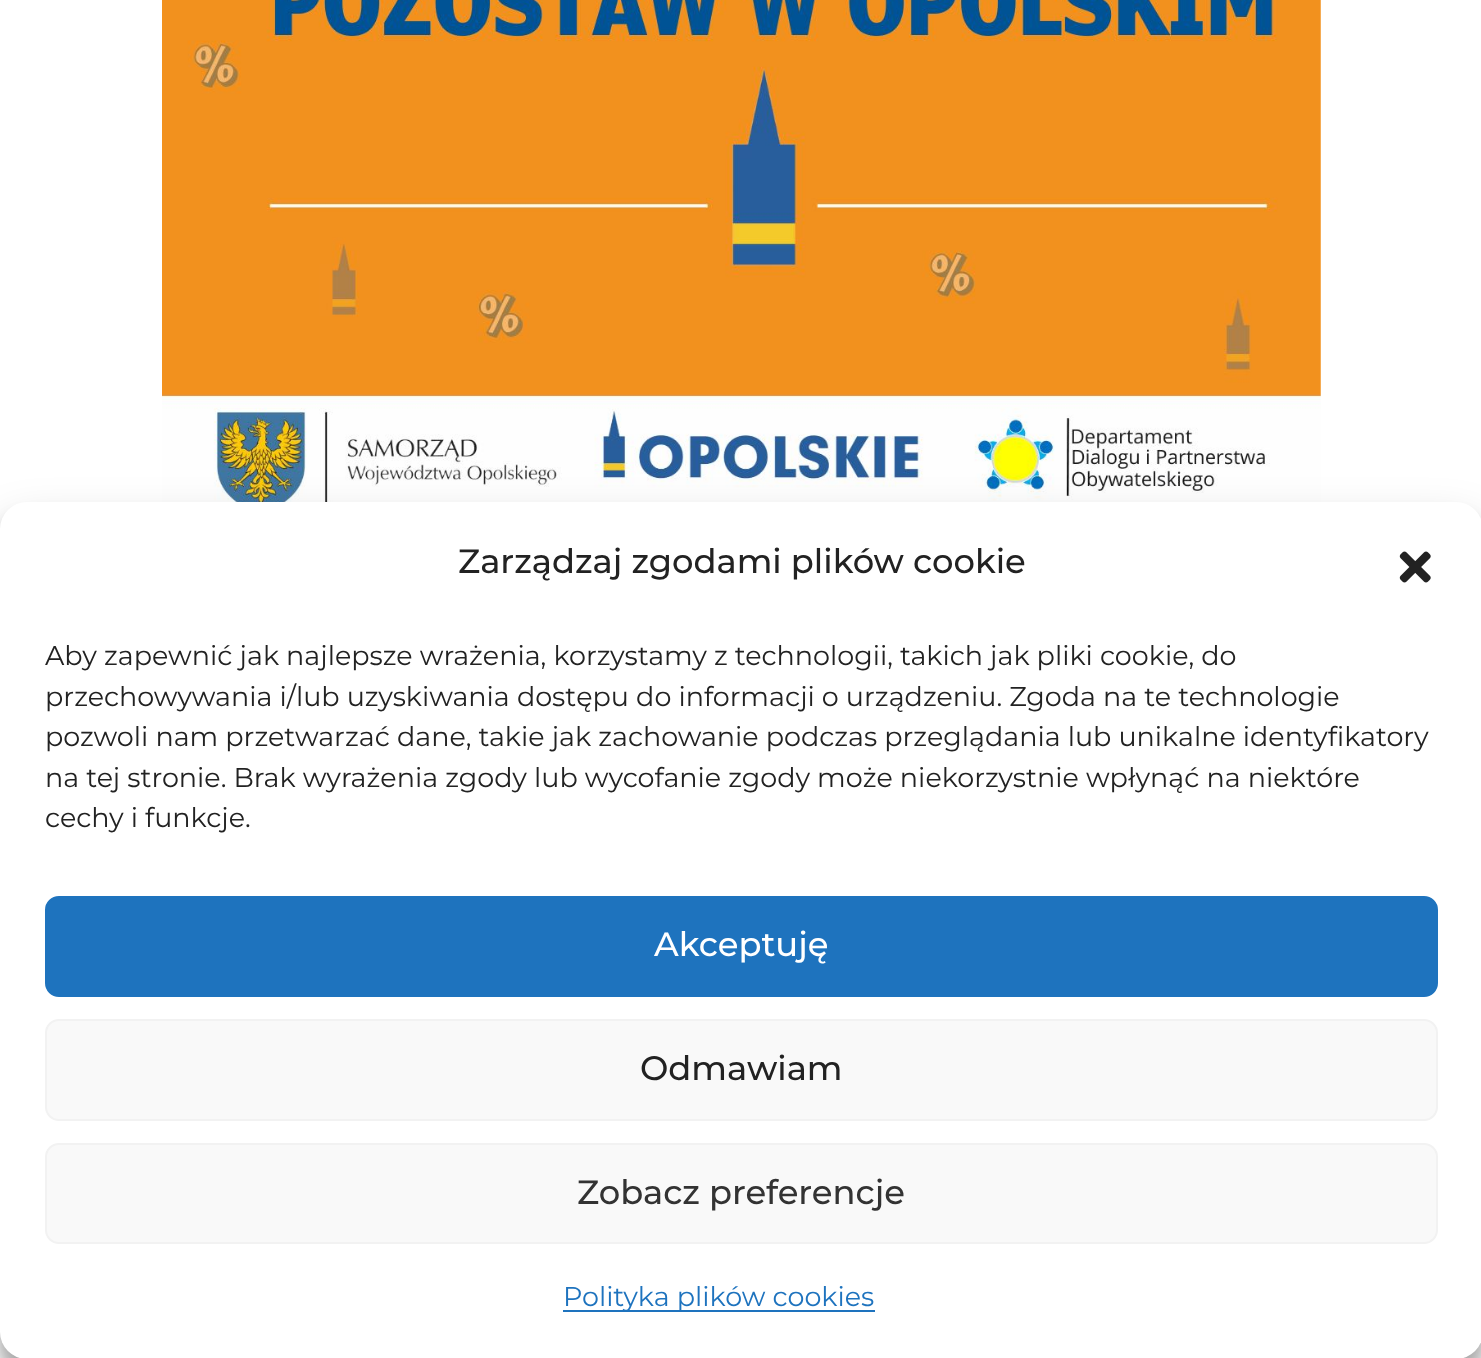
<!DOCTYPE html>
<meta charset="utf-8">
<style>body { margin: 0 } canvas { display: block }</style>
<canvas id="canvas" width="1481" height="1358"></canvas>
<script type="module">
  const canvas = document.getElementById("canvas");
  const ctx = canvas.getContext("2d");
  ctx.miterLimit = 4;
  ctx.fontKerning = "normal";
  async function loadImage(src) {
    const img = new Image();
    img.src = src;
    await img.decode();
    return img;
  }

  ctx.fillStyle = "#ffffff";
  ctx.fillRect(0, 0, 1481, 1358);
  ctx.drawImage(await loadImage("img1.png"), 162, 0, 1159, 502);
  ctx.fillStyle = "rgba(0, 0, 0, 0.23)";
  ctx.filter = "blur(7px)";
  ctx.beginPath();
  ctx.roundRect(0, 515, 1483, 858, 27);
  ctx.fill();
  ctx.filter = "none";
  ctx.fillStyle = "rgba(0, 0, 0, 0.19)";
  ctx.filter = "blur(22.5px)";
  ctx.beginPath();
  ctx.roundRect(0, 524, 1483, 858, 27);
  ctx.fill();
  ctx.filter = "none";
  ctx.fillStyle = "#ffffff";
  ctx.beginPath();
  ctx.roundRect(0, 502, 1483, 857, 27);
  ctx.fill();
  ctx.font = "500 33.75px Montserrat";
  ctx.fillStyle = "#222222";
  ctx.fillText("Zarządzaj zgodami plików cookie", 458, 573);
  ctx.drawImage(await loadImage("img2.png"), 1399, 551, 32, 32);
  ctx.font = "27px Montserrat";
  ctx.fillText("Aby zapewnić jak najlepsze wrażenia, korzystamy z technologii, takich jak pliki cookie, do", 45, 665);
  ctx.fillText("przechowywania i/lub uzyskiwania dostępu do informacji o urządzeniu. Zgoda na te technologie", 45, 706);
  ctx.fillText("pozwoli nam przetwarzać dane, takie jak zachowanie podczas przeglądania lub unikalne identyfikatory", 45, 746);
  ctx.fillText("na tej stronie. Brak wyrażenia zgody lub wycofanie zgody może niekorzystnie wpłynąć na niektóre", 45, 787);
  ctx.fillText("cechy i funkcje.", 45, 827);
  ctx.fillStyle = "#1e73be";
  ctx.beginPath();
  ctx.roundRect(46, 897, 1391, 99, 13);
  ctx.fill();
  ctx.strokeStyle = "#1e73be";
  ctx.lineWidth = 2;
  ctx.stroke();
  ctx.font = "500 33.75px Montserrat";
  ctx.fillStyle = "#ffffff";
  ctx.fillText("Akceptuję", 654, 956);
  ctx.fillStyle = "#f9f9f9";
  ctx.beginPath();
  ctx.roundRect(46, 1020, 1391, 100, 13);
  ctx.fill();
  ctx.strokeStyle = "#f2f2f2";
  ctx.stroke();
  ctx.fillStyle = "#222222";
  ctx.fillText("Odmawiam", 640, 1080);
  ctx.fillStyle = "#f9f9f9";
  ctx.beginPath();
  ctx.roundRect(46, 1144, 1391, 99, 13);
  ctx.fill();
  ctx.stroke();
  ctx.fillStyle = "#333333";
  ctx.fillText("Zobacz preferencje", 577, 1204);
  ctx.fillStyle = "#1e73be";
  ctx.fillRect(563, 1310, 312, 2);
  ctx.font = "27px Montserrat";
  ctx.fillText("Polityka plików cookies", 563, 1306);
</script>
